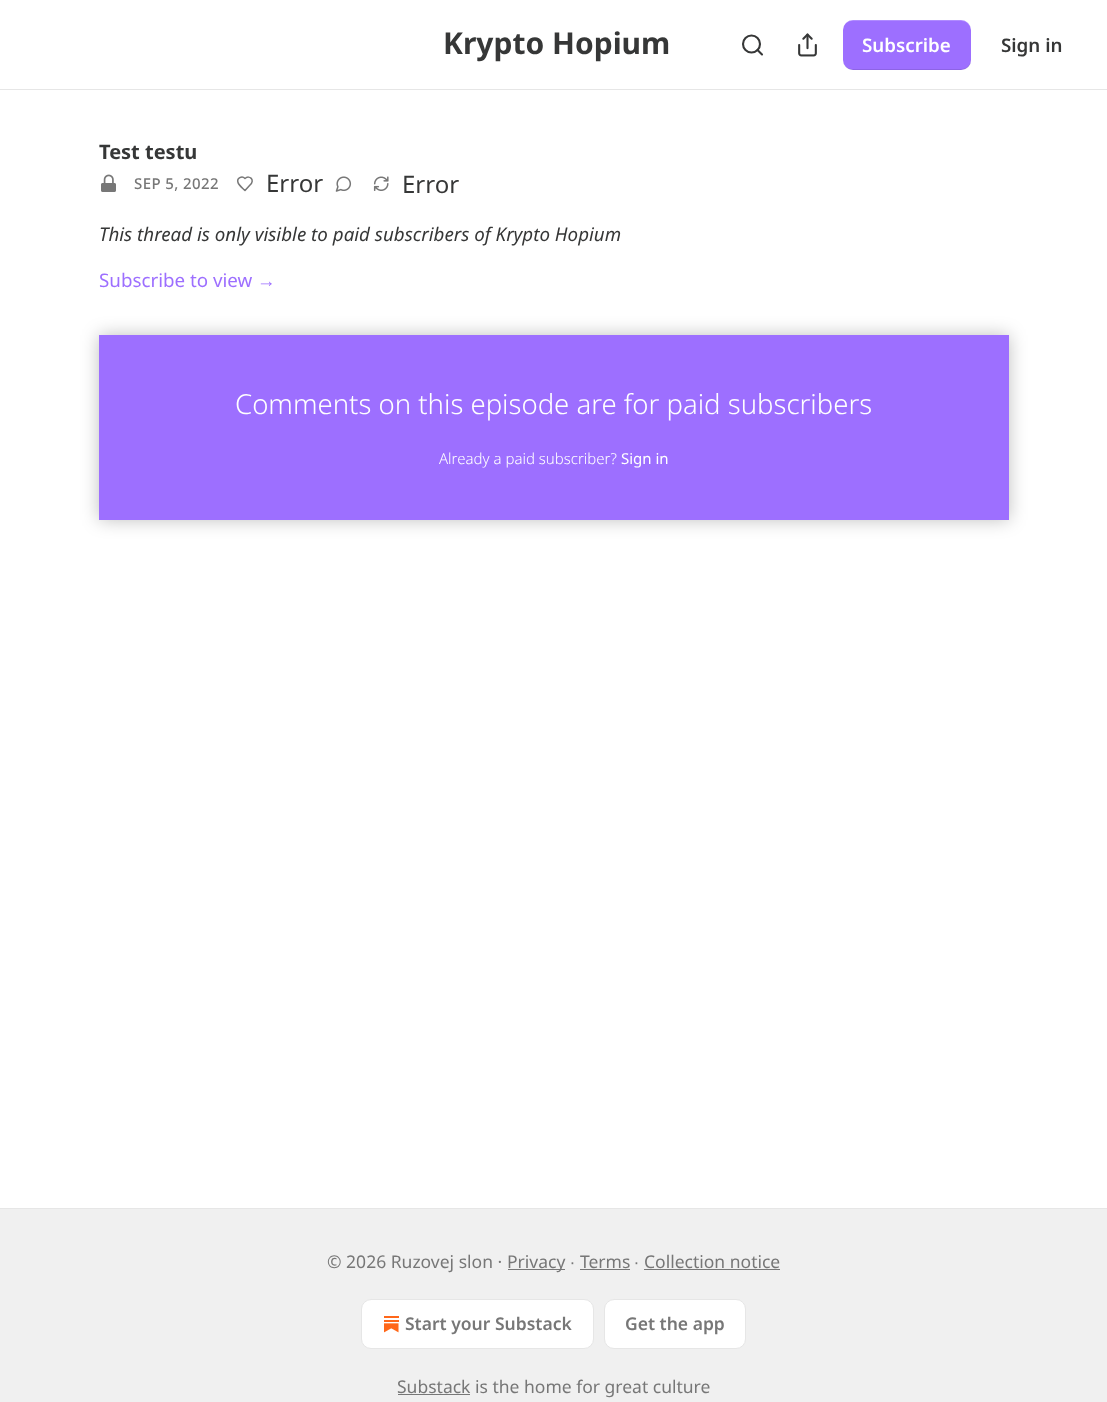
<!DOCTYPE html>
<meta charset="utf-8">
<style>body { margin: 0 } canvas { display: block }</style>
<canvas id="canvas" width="1107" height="1402"></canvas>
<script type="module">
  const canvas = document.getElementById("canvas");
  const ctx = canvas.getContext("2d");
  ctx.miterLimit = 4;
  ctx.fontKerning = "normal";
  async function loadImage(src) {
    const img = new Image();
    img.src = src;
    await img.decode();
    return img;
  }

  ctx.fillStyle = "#ffffff";
  ctx.fillRect(0, 0, 1107, 1402);
  ctx.fillStyle = "#e6e6e6";
  ctx.fillRect(0, 89, 1107, 1);
  ctx.font = "bold 30px Noto Sans";
  ctx.fillStyle = "#363737";
  ctx.fillText("Krypto Hopium", 443, 54);
  ctx.beginPath();
  ctx.arc(751.5, 44, 8.5, 0, Math.PI * 2);
  ctx.strokeStyle = "#363737";
  ctx.lineWidth = 2.1;
  ctx.stroke();
  ctx.beginPath();
  ctx.moveTo(762, 54.5);
  ctx.lineTo(757.5, 50);
  ctx.lineCap = "round";
  ctx.lineJoin = "round";
  ctx.stroke();
  ctx.drawImage(await loadImage("img1.png"), 798, 33, 19, 24);
  ctx.fillStyle = "#9d6fff";
  ctx.beginPath();
  ctx.roundRect(843, 20, 128, 50, 10);
  ctx.fill();
  ctx.fillStyle = "rgba(0, 0, 0, 0.1)";
  ctx.beginPath();
  ctx.moveTo(844, 65);
  ctx.bezierCurveTo(846, 68, 849, 70, 853, 70);
  ctx.lineTo(961, 70);
  ctx.bezierCurveTo(967, 70, 971, 66, 971, 60);
  ctx.lineTo(971, 59);
  ctx.bezierCurveTo(971, 64, 967, 69, 961, 69);
  ctx.lineTo(852, 69);
  ctx.bezierCurveTo(849, 69, 846, 67, 844, 65);
  ctx.closePath();
  ctx.fill();
  ctx.fillStyle = "rgba(255, 255, 255, 0.2)";
  ctx.beginPath();
  ctx.moveTo(852, 21);
  ctx.lineTo(961, 21);
  ctx.bezierCurveTo(967, 21, 971, 26, 971, 31);
  ctx.lineTo(971, 30);
  ctx.bezierCurveTo(971, 24, 967, 20, 961, 20);
  ctx.lineTo(853, 20);
  ctx.bezierCurveTo(849, 20, 846, 22, 844, 25);
  ctx.bezierCurveTo(846, 23, 849, 21, 852, 21);
  ctx.closePath();
  ctx.fill();
  ctx.font = "600 18.75px Noto Sans";
  ctx.fillStyle = "#ffffff";
  ctx.fillText("Subscribe", 862, 52);
  ctx.fillStyle = "#363737";
  ctx.fillText("Sign in", 1001, 52);
  ctx.font = "bold 20px Noto Sans";
  ctx.fillText("Test testu", 99, 159);
  ctx.drawImage(await loadImage("img2.png"), 101, 174, 15, 18);
  ctx.letterSpacing = "0.4px";
  ctx.font = "500 15px Noto Sans";
  ctx.fillStyle = "#777777";
  ctx.fillText("SEP 5, 2022", 134, 189);
  ctx.beginPath();
  ctx.moveTo(250, 185);
  ctx.bezierCurveTo(255.5, 180, 249.5, 174.5, 245, 178.5);
  ctx.bezierCurveTo(242, 175.5, 236.5, 178, 238, 182.5);
  ctx.bezierCurveTo(238.5, 185, 243, 188.5, 245, 190.5);
  ctx.closePath();
  ctx.strokeStyle = "#777777";
  ctx.lineWidth = 1.5;
  ctx.stroke();
  ctx.letterSpacing = "0px";
  ctx.font = "24px Noto Sans";
  ctx.fillStyle = "#363737";
  ctx.fillText("Error", 266, 192);
  ctx.drawImage(await loadImage("img3.png"), 335, 176, 17, 16);
  ctx.drawImage(await loadImage("img4.png"), 373, 176, 16, 15);
  ctx.fillText("Error", 402, 193);
  ctx.font = "italic 18.75px Noto Sans";
  ctx.fillText("This thread is only visible to paid subscribers of Krypto Hopium", 99, 241);
  ctx.font = "18.75px Noto Sans";
  ctx.fillStyle = "#9d6fff";
  ctx.fillText("Subscribe to view", 99, 287);
  ctx.font = "18.75px Liberation Sans";
  ctx.fillText("→", 257, 287);
  ctx.fillRect(99, 335, 910, 185);
  ctx.save();
  ctx.beginPath();
  ctx.moveTo(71, 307);
  ctx.lineTo(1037, 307);
  ctx.lineTo(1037, 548);
  ctx.lineTo(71, 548);
  ctx.closePath();
  ctx.moveTo(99, 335);
  ctx.lineTo(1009, 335);
  ctx.lineTo(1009, 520);
  ctx.lineTo(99, 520);
  ctx.closePath();
  ctx.clip("evenodd");
  ctx.fillStyle = "rgba(0, 0, 0, 0.25)";
  ctx.filter = "blur(9px)";
  ctx.beginPath();
  ctx.rect(99, 335, 910, 185);
  ctx.fill();
  ctx.filter = "none";
  ctx.restore();
  ctx.font = "300 27.5px Noto Sans";
  ctx.fillStyle = "#ffffff";
  ctx.fillText("Comments on this episode are for paid subscribers", 235, 414);
  ctx.font = "300 15px Noto Sans";
  ctx.fillText("Already a paid subscriber?", 439, 464);
  ctx.font = "15px Noto Sans";
  ctx.fillText("Sign in", 621, 464);
  ctx.fillStyle = "#f0f0f0";
  ctx.fillRect(0, 1209, 1107, 193);
  ctx.fillStyle = "#e6e6e6";
  ctx.fillRect(0, 1208, 1107, 1);
  ctx.font = "17.5px Noto Sans";
  ctx.fillStyle = "#777777";
  ctx.fillText("© 2026 Ruzovej slon ·", 327, 1268);
  ctx.fillRect(508, 1269, 57, 1);
  ctx.fillText("Privacy", 507, 1268);
  ctx.font = "17.5px Liberation Sans";
  ctx.fillText("∙", 570, 1268);
  ctx.font = "17.5px Noto Sans";
  ctx.fillText("Terms", 580, 1268);
  ctx.fillRect(580, 1269, 50, 1);
  ctx.font = "17.5px Liberation Sans";
  ctx.fillText("∙", 634, 1268);
  ctx.font = "17.5px Noto Sans";
  ctx.fillText("Collection notice", 644, 1268);
  ctx.fillRect(644, 1269, 136, 1);
  ctx.fillStyle = "#ffffff";
  ctx.beginPath();
  ctx.roundRect(361.5, 1299.5, 232, 49, 9.5);
  ctx.fill();
  ctx.strokeStyle = "#e6e6e6";
  ctx.lineWidth = 1;
  ctx.lineJoin = "miter";
  ctx.stroke();
  ctx.drawImage(await loadImage("img5.png"), 384, 1316, 15, 17);
  ctx.font = "600 17.5px Noto Sans";
  ctx.fillStyle = "#777777";
  ctx.fillText("Start your Substack", 405, 1330);
  ctx.fillStyle = "#ffffff";
  ctx.beginPath();
  ctx.roundRect(604.5, 1299.5, 141, 49, 9.5);
  ctx.fill();
  ctx.stroke();
  ctx.fillStyle = "#777777";
  ctx.fillText("Get the app", 625, 1330);
  ctx.fillRect(398, 1394, 72, 1);
  ctx.font = "17.5px Noto Sans";
  ctx.fillText("Substack is the home for great culture", 397, 1393);
</script>
